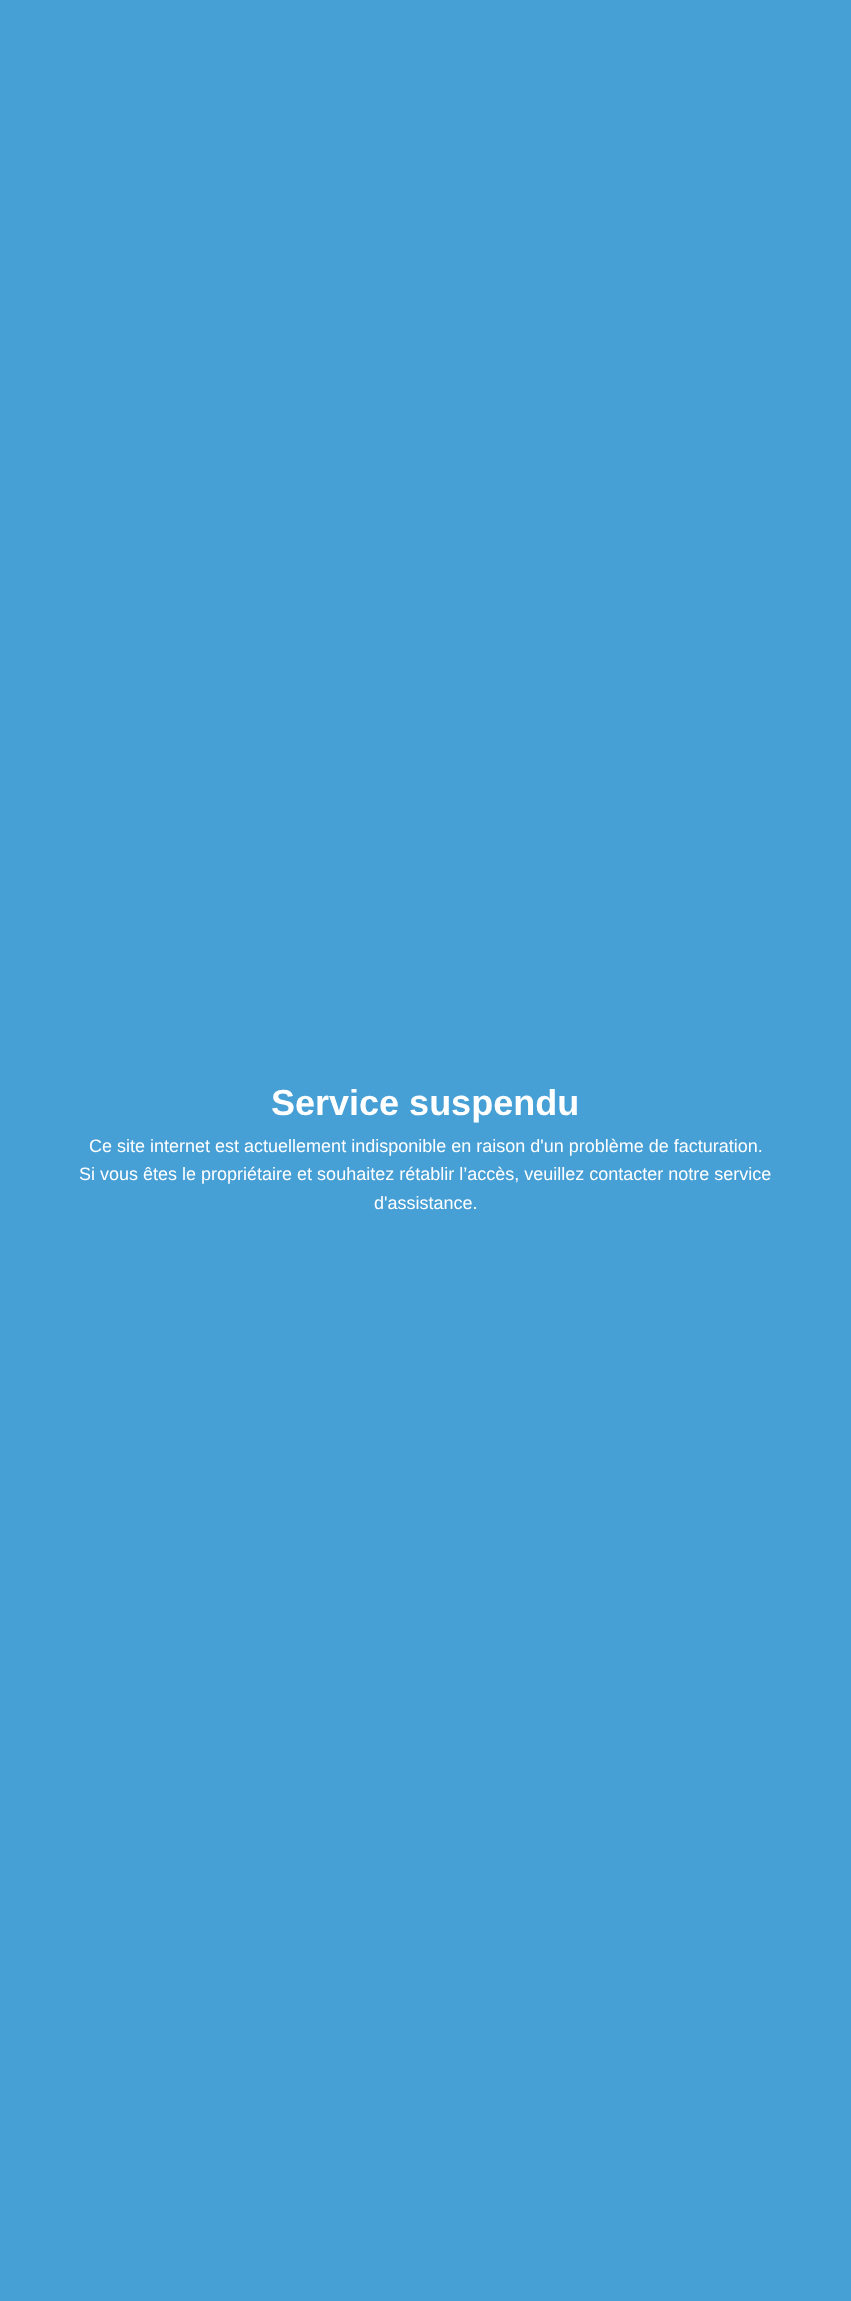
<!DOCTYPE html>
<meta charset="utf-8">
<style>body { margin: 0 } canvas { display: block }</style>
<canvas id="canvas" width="851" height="2301"></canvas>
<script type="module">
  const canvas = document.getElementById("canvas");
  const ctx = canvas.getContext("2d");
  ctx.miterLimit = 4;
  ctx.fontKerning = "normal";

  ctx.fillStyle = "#469fd5";
  ctx.fillRect(0, 0, 851, 2301);
  ctx.font = "bold 36px Liberation Sans";
  ctx.fillStyle = "#ffffff";
  ctx.fillText("Service suspendu", 271, 1115);
  ctx.font = "18px Liberation Sans";
  ctx.fillText("Ce site internet est actuellement indisponible en raison d'un problème de facturation.", 89, 1152);
  ctx.fillText("Si vous êtes le propriétaire et souhaitez rétablir l’accès, veuillez contacter notre service", 79, 1180);
  ctx.fillText("d'assistance.", 374, 1209);
</script>
